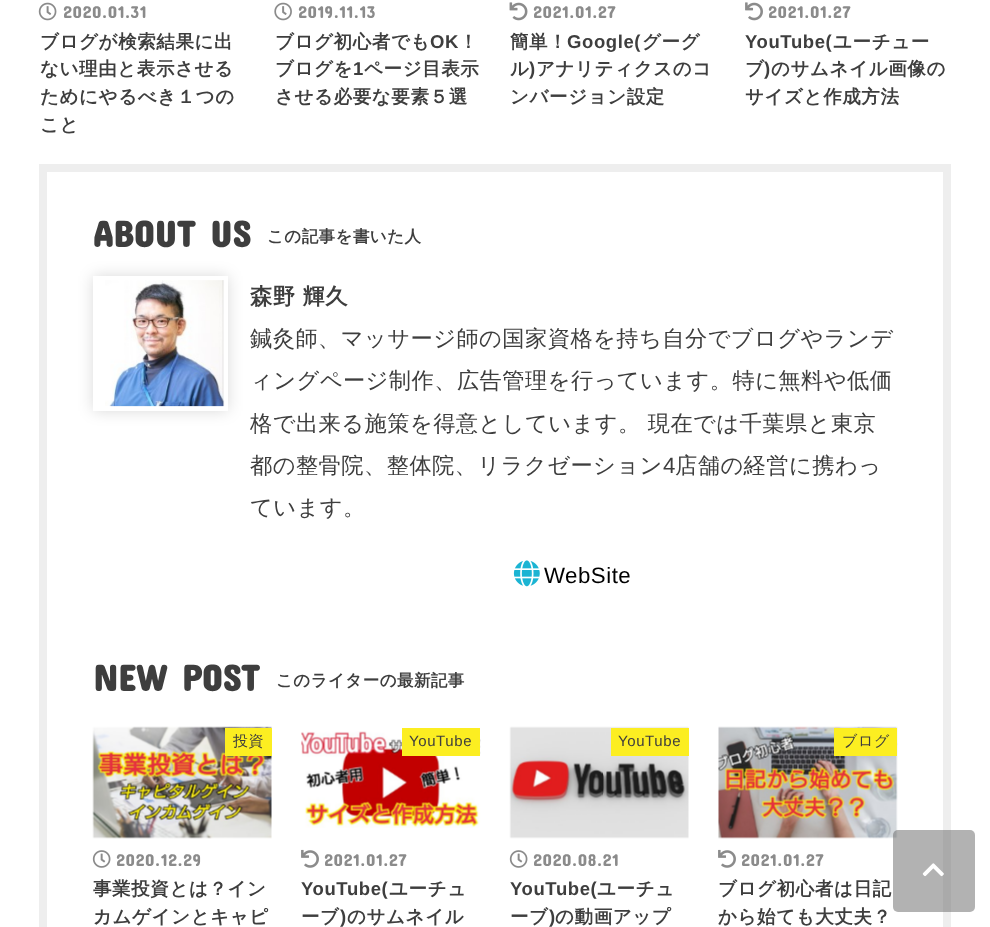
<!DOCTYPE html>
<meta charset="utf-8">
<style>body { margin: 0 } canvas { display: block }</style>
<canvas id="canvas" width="990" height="927"></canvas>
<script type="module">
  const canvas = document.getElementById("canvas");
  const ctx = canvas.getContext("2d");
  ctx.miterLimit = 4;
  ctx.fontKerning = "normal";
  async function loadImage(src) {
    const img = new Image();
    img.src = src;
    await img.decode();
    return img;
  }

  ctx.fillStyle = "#ffffff";
  ctx.fillRect(0, 0, 990, 927);
  ctx.drawImage(await loadImage("img1.png"), 38, 2, 19, 19);
  ctx.letterSpacing = "0.6px";
  ctx.font = "17.25px Concert One";
  ctx.fillStyle = "#8b8b8b";
  ctx.fillText("2020.01.31", 63, 18);
  ctx.font = "bold 18.5px WenQuanYi Zen Hei";
  ctx.fillStyle = "#3e3e3e";
  ctx.fillText("ブログが検索結果に出", 40, 48);
  ctx.fillText("ない理由と表示させる", 40, 75);
  ctx.fillText("ためにやるべき１つの", 40, 103);
  ctx.fillText("こと", 40, 131);
  ctx.drawImage(await loadImage("img2.png"), 274, 2, 18, 19);
  ctx.font = "17.25px Concert One";
  ctx.fillStyle = "#8b8b8b";
  ctx.fillText("2019.11.13", 298, 18);
  ctx.font = "bold 18.5px WenQuanYi Zen Hei";
  ctx.fillStyle = "#3e3e3e";
  ctx.fillText("ブログ初心者でも", 275, 48);
  ctx.font = "bold 18.5px Liberation Sans";
  ctx.fillText("OK", 430, 48);
  ctx.font = "bold 18.5px WenQuanYi Zen Hei";
  ctx.fillText("！", 459, 48);
  ctx.fillText("ブログを", 275, 75);
  ctx.font = "bold 18.5px Liberation Sans";
  ctx.fillText("1", 353, 75);
  ctx.font = "bold 18.5px WenQuanYi Zen Hei";
  ctx.fillText("ページ目表示", 364, 75);
  ctx.fillText("させる必要な要素５選", 275, 103);
  ctx.drawImage(await loadImage("img3.png"), 509, 2, 19, 19);
  ctx.font = "17.25px Concert One";
  ctx.fillStyle = "#8b8b8b";
  ctx.fillText("2021.01.27", 533, 18);
  ctx.font = "bold 18.5px WenQuanYi Zen Hei";
  ctx.fillStyle = "#3e3e3e";
  ctx.fillText("簡単！", 510, 48);
  ctx.font = "bold 18.5px Liberation Sans";
  ctx.fillText("Google(", 567, 48);
  ctx.font = "bold 18.5px WenQuanYi Zen Hei";
  ctx.fillText("グーグ", 642, 48);
  ctx.fillText("ル", 510, 75);
  ctx.font = "bold 18.5px Liberation Sans";
  ctx.fillText(")", 529, 75);
  ctx.font = "bold 18.5px WenQuanYi Zen Hei";
  ctx.fillText("アナリティクスのコ", 536, 75);
  ctx.fillText("ンバージョン設定", 510, 103);
  ctx.drawImage(await loadImage("img4.png"), 745, 2, 18, 19);
  ctx.font = "17.25px Concert One";
  ctx.fillStyle = "#8b8b8b";
  ctx.fillText("2021.01.27", 768, 18);
  ctx.font = "bold 18.5px Liberation Sans";
  ctx.fillStyle = "#3e3e3e";
  ctx.fillText("YouTube(", 745, 48);
  ctx.font = "bold 18.5px WenQuanYi Zen Hei";
  ctx.fillText("ユーチュー", 833, 48);
  ctx.fillText("ブ", 745, 75);
  ctx.font = "bold 18.5px Liberation Sans";
  ctx.fillText(")", 764, 75);
  ctx.font = "bold 18.5px WenQuanYi Zen Hei";
  ctx.fillText("のサムネイル画像の", 771, 75);
  ctx.fillText("サイズと作成方法", 745, 103);
  ctx.strokeStyle = "#eeeeee";
  ctx.lineWidth = 8;
  ctx.strokeRect(43, 168, 904, 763);
  ctx.letterSpacing = "0.45px";
  ctx.font = "bold 37px Concert One";
  ctx.fillText("ABOUT US", 93, 247);
  ctx.font = "bold 16.5px WenQuanYi Zen Hei";
  ctx.fillText("この記事を書いた人", 267, 242);
  ctx.save();
  ctx.beginPath();
  ctx.moveTo(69, 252);
  ctx.lineTo(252, 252);
  ctx.lineTo(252, 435);
  ctx.lineTo(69, 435);
  ctx.closePath();
  ctx.moveTo(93, 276);
  ctx.lineTo(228, 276);
  ctx.lineTo(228, 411);
  ctx.lineTo(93, 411);
  ctx.closePath();
  ctx.clip("evenodd");
  ctx.fillStyle = "rgba(0, 0, 0, 0.15)";
  ctx.filter = "blur(7.5px)";
  ctx.beginPath();
  ctx.rect(93, 276, 135, 135);
  ctx.fill();
  ctx.filter = "none";
  ctx.restore();
  ctx.drawImage(await loadImage("img5.png"), 105, 280, 120, 127);
  ctx.font = "bold 22.25px WenQuanYi Zen Hei";
  ctx.fillText("森野 輝久", 250, 304);
  ctx.font = "500 22.25px WenQuanYi Zen Hei";
  ctx.fillText("鍼灸師、マッサージ師の国家資格を持ち自分でブログやランデ", 250, 346);
  ctx.fillText("ィングページ制作、広告管理を行っています。特に無料や低価", 250, 388);
  ctx.fillText("格で出来る施策を得意としています。 現在では千葉県と東京", 250, 431);
  ctx.fillText("都の整骨院、整体院、リラクゼーション", 250, 473);
  ctx.font = "22.25px Liberation Sans";
  ctx.fillText("4", 663, 473);
  ctx.font = "500 22.25px WenQuanYi Zen Hei";
  ctx.fillText("店舗の経営に携わっ", 675, 473);
  ctx.fillText("ています。", 250, 515);
  ctx.drawImage(await loadImage("img6.png"), 513, 560, 27, 27);
  ctx.letterSpacing = "0.5px";
  ctx.font = "22.25px Liberation Sans";
  ctx.fillStyle = "#000000";
  ctx.fillText("WebSite", 544, 583);
  ctx.letterSpacing = "0.45px";
  ctx.font = "bold 37px Concert One";
  ctx.fillStyle = "#3e3e3e";
  ctx.fillText("NEW POST", 93, 691);
  ctx.font = "bold 16.5px WenQuanYi Zen Hei";
  ctx.fillText("このライターの最新記事", 276, 686);
  ctx.drawImage(await loadImage("img7.png"), 92, 726, 180, 113);
  ctx.fillStyle = "#fcee21";
  ctx.fillRect(225, 728, 47, 28);
  ctx.letterSpacing = "0.6px";
  ctx.font = "500 15px WenQuanYi Zen Hei";
  ctx.fillStyle = "#3e3e3e";
  ctx.fillText("投資", 233, 746);
  ctx.drawImage(await loadImage("img8.png"), 92, 850, 19, 18);
  ctx.font = "17.25px Concert One";
  ctx.fillStyle = "#8b8b8b";
  ctx.fillText("2020.12.29", 116, 866);
  ctx.font = "bold 18.5px WenQuanYi Zen Hei";
  ctx.fillStyle = "#3e3e3e";
  ctx.fillText("事業投資とは？イン", 93, 895);
  ctx.fillText("カムゲインとキャピ", 93, 923);
  ctx.drawImage(await loadImage("img9.png"), 301, 731, 180, 97);
  ctx.fillStyle = "#fcee21";
  ctx.fillRect(402, 728, 78, 28);
  ctx.font = "15px Liberation Sans";
  ctx.fillStyle = "#3e3e3e";
  ctx.fillText("YouTube", 409, 746);
  ctx.drawImage(await loadImage("img10.png"), 301, 849, 18, 19);
  ctx.font = "17.25px Concert One";
  ctx.fillStyle = "#8b8b8b";
  ctx.fillText("2021.01.27", 324, 866);
  ctx.font = "bold 18.5px Liberation Sans";
  ctx.fillStyle = "#3e3e3e";
  ctx.fillText("YouTube(", 301, 895);
  ctx.font = "bold 18.5px WenQuanYi Zen Hei";
  ctx.fillText("ユーチュ", 389, 895);
  ctx.fillText("ーブ", 301, 923);
  ctx.font = "bold 18.5px Liberation Sans";
  ctx.fillText(")", 340, 923);
  ctx.font = "bold 18.5px WenQuanYi Zen Hei";
  ctx.fillText("のサムネイル", 347, 923);
  ctx.drawImage(await loadImage("img11.png"), 509, 726, 180, 113);
  ctx.fillStyle = "#fcee21";
  ctx.fillRect(611, 728, 78, 28);
  ctx.font = "15px Liberation Sans";
  ctx.fillStyle = "#3e3e3e";
  ctx.fillText("YouTube", 618, 746);
  ctx.drawImage(await loadImage("img12.png"), 509, 850, 19, 18);
  ctx.font = "17.25px Concert One";
  ctx.fillStyle = "#8b8b8b";
  ctx.fillText("2020.08.21", 533, 866);
  ctx.font = "bold 18.5px Liberation Sans";
  ctx.fillStyle = "#3e3e3e";
  ctx.fillText("YouTube(", 510, 895);
  ctx.font = "bold 18.5px WenQuanYi Zen Hei";
  ctx.fillText("ユーチュ", 597, 895);
  ctx.fillText("ーブ", 510, 923);
  ctx.font = "bold 18.5px Liberation Sans";
  ctx.fillText(")", 549, 923);
  ctx.font = "bold 18.5px WenQuanYi Zen Hei";
  ctx.fillText("の動画アップ", 555, 923);
  ctx.drawImage(await loadImage("img13.png"), 718, 726, 180, 113);
  ctx.fillStyle = "#fcee21";
  ctx.fillRect(834, 728, 63, 28);
  ctx.font = "500 15px WenQuanYi Zen Hei";
  ctx.fillStyle = "#3e3e3e";
  ctx.fillText("ブログ", 842, 746);
  ctx.drawImage(await loadImage("img14.png"), 718, 849, 18, 19);
  ctx.font = "17.25px Concert One";
  ctx.fillStyle = "#8b8b8b";
  ctx.fillText("2021.01.27", 741, 866);
  ctx.font = "bold 18.5px WenQuanYi Zen Hei";
  ctx.fillStyle = "#3e3e3e";
  ctx.fillText("ブログ初心者は日記", 718, 895);
  ctx.fillText("から始ても大丈夫？", 718, 923);
  ctx.fillStyle = "rgba(102, 102, 102, 0.5)";
  ctx.beginPath();
  ctx.roundRect(893, 830, 82, 82, 5);
  ctx.fill();
  ctx.drawImage(await loadImage("img15.png"), 922, 863, 22, 14);
</script>
